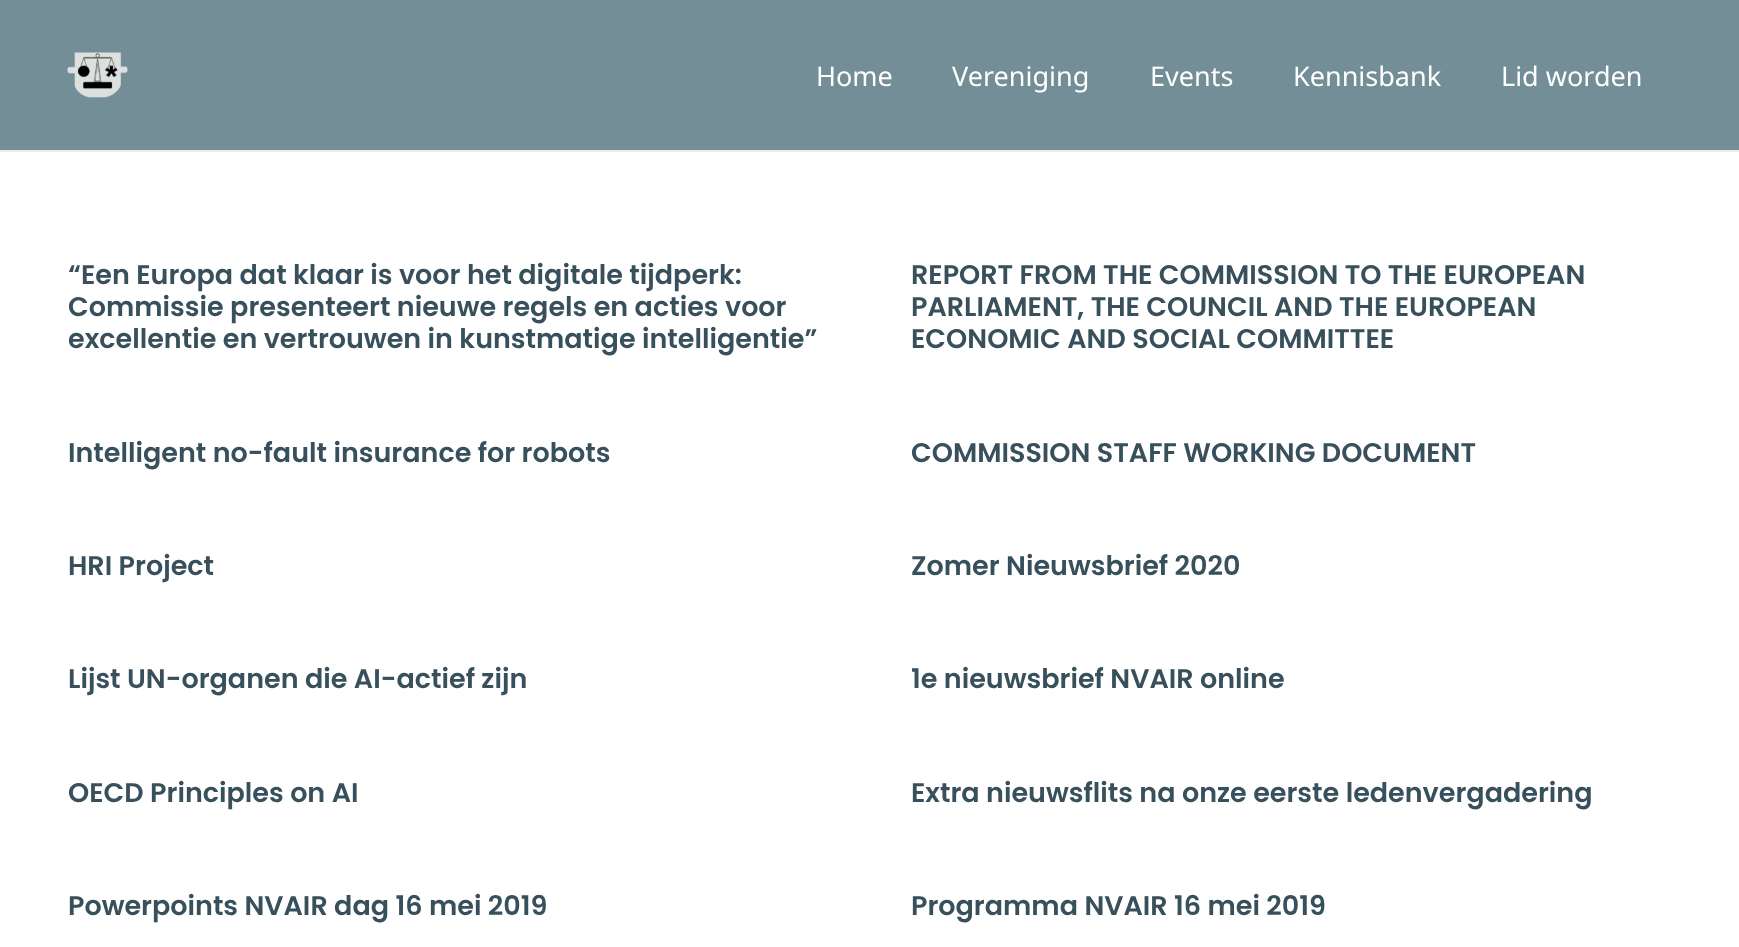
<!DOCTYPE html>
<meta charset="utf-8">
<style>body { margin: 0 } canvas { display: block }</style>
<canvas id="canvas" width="1739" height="947"></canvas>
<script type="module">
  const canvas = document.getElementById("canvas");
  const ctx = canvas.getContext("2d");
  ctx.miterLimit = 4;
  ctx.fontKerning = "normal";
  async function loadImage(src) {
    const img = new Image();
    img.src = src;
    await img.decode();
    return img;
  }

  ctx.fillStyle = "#ffffff";
  ctx.fillRect(0, 0, 1739, 947);
  ctx.fillStyle = "#ebebeb";
  ctx.fillRect(0, 150, 1739, 2);
  ctx.fillStyle = "#738e96";
  ctx.fillRect(0, 0, 1739, 150);
  ctx.drawImage(await loadImage("img1.png"), 67, 52, 61, 46);
  ctx.font = "27px Noto Sans";
  ctx.fillStyle = "#ffffff";
  ctx.fillText("Home", 816, 86);
  ctx.fillText("Vereniging", 952, 86);
  ctx.fillText("Events", 1150, 86);
  ctx.fillText("Kennisbank", 1293, 86);
  ctx.fillText("Lid worden", 1501, 86);
  ctx.font = "600 27px Poppins";
  ctx.fillStyle = "#38505c";
  ctx.fillText("“Een Europa dat klaar is voor het digitale tijdperk:", 68, 284);
  ctx.fillText("Commissie presenteert nieuwe regels en acties voor", 68, 316);
  ctx.fillText("excellentie en vertrouwen in kunstmatige intelligentie”", 68, 348);
  ctx.fillText("REPORT FROM THE COMMISSION TO THE EUROPEAN", 911, 284);
  ctx.fillText("PARLIAMENT, THE COUNCIL AND THE EUROPEAN", 911, 316);
  ctx.fillText("ECONOMIC AND SOCIAL COMMITTEE", 911, 348);
  ctx.fillText("Intelligent no-fault insurance for robots", 68, 462);
  ctx.fillText("COMMISSION STAFF WORKING DOCUMENT", 911, 462);
  ctx.fillText("HRI Project", 68, 575);
  ctx.fillText("Zomer Nieuwsbrief 2020", 911, 575);
  ctx.fillText("Lijst UN-organen die AI-actief zijn", 68, 688);
  ctx.fillText("1e nieuwsbrief NVAIR online", 911, 688);
  ctx.fillText("OECD Principles on AI", 68, 802);
  ctx.fillText("Extra nieuwsflits na onze eerste ledenvergadering", 911, 802);
  ctx.fillText("Powerpoints NVAIR dag 16 mei 2019", 68, 915);
  ctx.fillText("Programma NVAIR 16 mei 2019", 911, 915);
</script>
